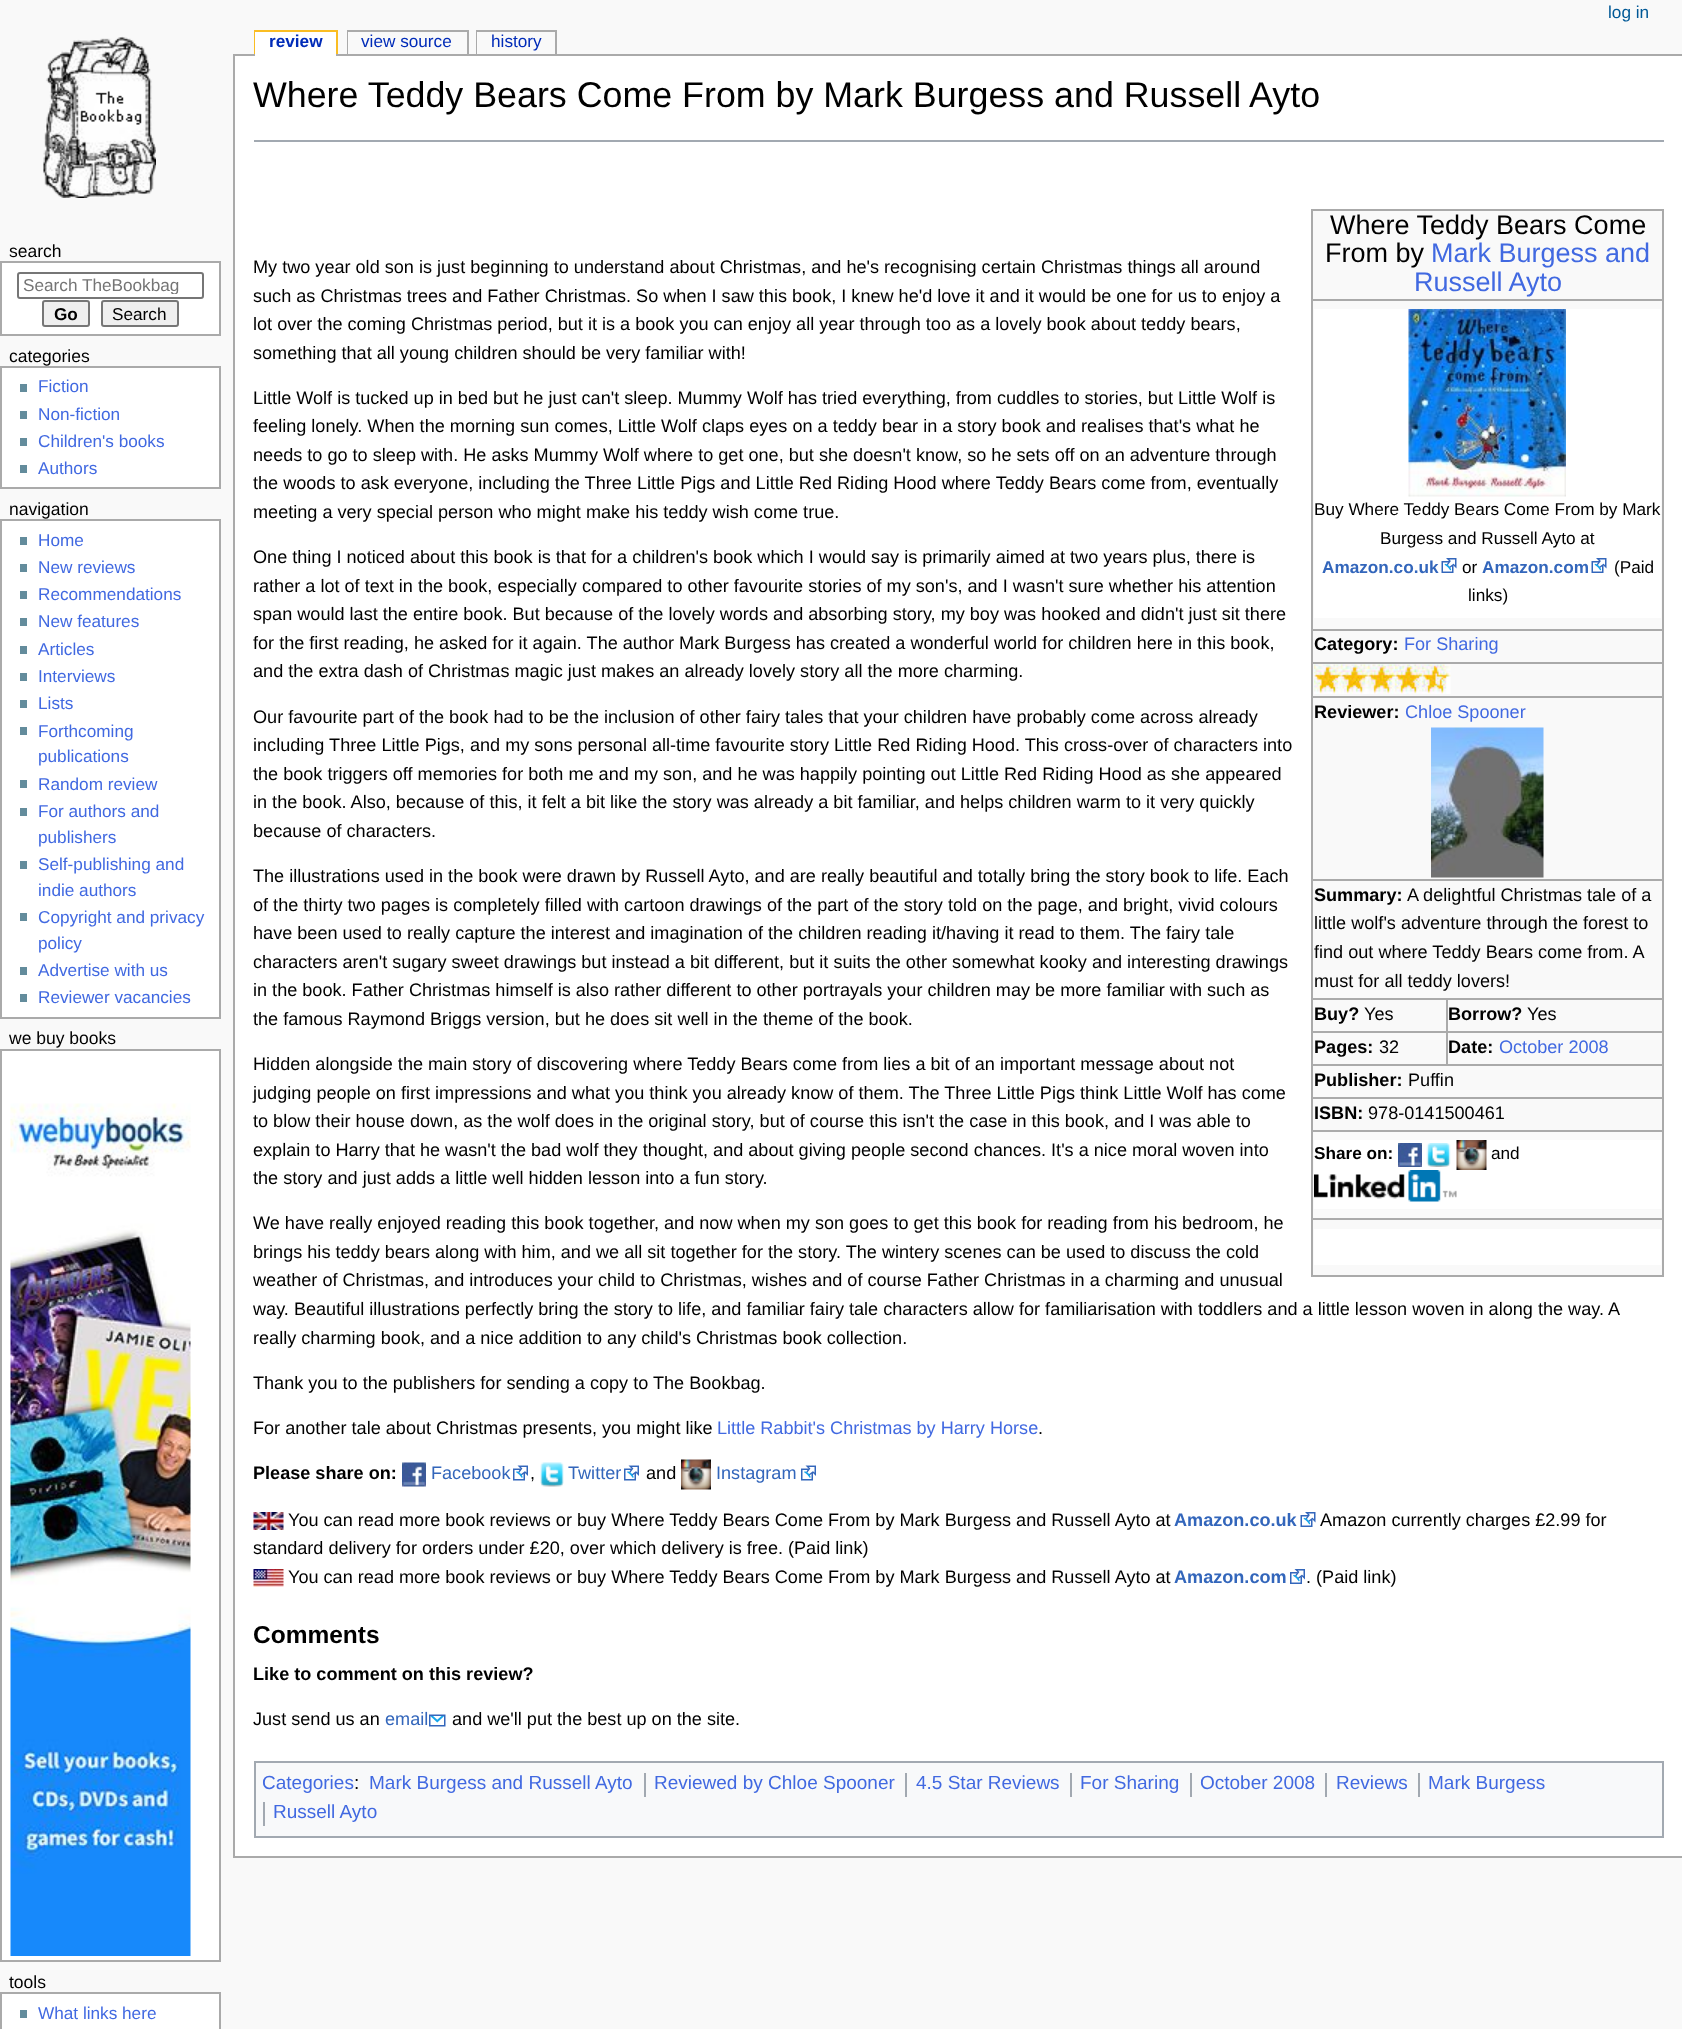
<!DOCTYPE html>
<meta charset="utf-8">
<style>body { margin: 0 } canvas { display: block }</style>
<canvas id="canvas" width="1682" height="2029"></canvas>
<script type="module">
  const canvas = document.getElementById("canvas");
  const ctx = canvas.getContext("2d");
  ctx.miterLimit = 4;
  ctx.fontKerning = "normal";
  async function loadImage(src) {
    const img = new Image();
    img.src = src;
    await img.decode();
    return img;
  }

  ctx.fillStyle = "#f9f9f9";
  ctx.fillRect(0, 0, 1682, 2029);
  ctx.font = "17.2px Liberation Sans";
  ctx.fillStyle = "#005896";
  ctx.fillText("log in", 1608, 18);
  ctx.drawImage(await loadImage("img1.png"), 43, 36, 113, 162);
  ctx.fillStyle = "#fabd23";
  ctx.fillRect(254, 30, 84, 2);
  ctx.fillRect(254, 30, 2, 24);
  ctx.fillStyle = "#aaaaaa";
  ctx.fillRect(233, 54, 1449, 2);
  ctx.fillStyle = "#ffffff";
  ctx.fillRect(255, 32, 81, 24);
  ctx.font = "bold 17.2px Liberation Sans";
  ctx.fillStyle = "#002bb8";
  ctx.fillText("review", 269, 47);
  ctx.fillStyle = "#fabd23";
  ctx.fillRect(336, 30, 2, 24);
  ctx.font = "17.2px Liberation Sans";
  ctx.fillStyle = "#002bb8";
  ctx.fillText("view source", 361, 47);
  ctx.fillStyle = "#aaaaaa";
  ctx.fillRect(347, 30, 121, 2);
  ctx.fillRect(467, 30, 2, 24);
  ctx.fillRect(347, 30, 2, 24);
  ctx.fillStyle = "#fbfbfb";
  ctx.fillRect(348, 32, 1, 22);
  ctx.fillStyle = "#002bb8";
  ctx.fillText("history", 491, 47);
  ctx.fillStyle = "#aaaaaa";
  ctx.fillRect(476, 30, 81, 2);
  ctx.fillRect(555, 30, 2, 24);
  ctx.fillRect(476, 30, 2, 24);
  ctx.fillStyle = "#fbfbfb";
  ctx.fillRect(477, 32, 1, 22);
  ctx.font = "17.5px Liberation Sans";
  ctx.fillStyle = "#000000";
  ctx.fillText("search", 9, 257);
  ctx.fillStyle = "#ffffff";
  ctx.beginPath();
  ctx.rect(1, 262, 219, 73);
  ctx.fill();
  ctx.strokeStyle = "#aaaaaa";
  ctx.lineWidth = 2;
  ctx.stroke();
  ctx.beginPath();
  ctx.roundRect(18, 273, 185, 25, 2);
  ctx.strokeStyle = "#767676";
  ctx.stroke();
  ctx.save();
  ctx.beginPath();
  ctx.rect(23, 276, 157, 18);
  ctx.clip();
  ctx.font = "17.2px Liberation Sans";
  ctx.fillStyle = "#757575";
  ctx.fillText("Search TheBookbag", 23, 291);
  ctx.restore();
  ctx.fillStyle = "#efefef";
  ctx.beginPath();
  ctx.roundRect(43, 301, 46, 25, 2);
  ctx.fill();
  ctx.stroke();
  ctx.font = "bold 17.2px Liberation Sans";
  ctx.fillStyle = "#000000";
  ctx.fillText("Go", 54, 320);
  ctx.fillStyle = "#efefef";
  ctx.beginPath();
  ctx.roundRect(102, 301, 76, 25, 2);
  ctx.fill();
  ctx.stroke();
  ctx.font = "17.2px Liberation Sans";
  ctx.fillStyle = "#000000";
  ctx.fillText("Search", 112, 320);
  ctx.font = "17.5px Liberation Sans";
  ctx.fillText("categories", 9, 362);
  ctx.fillStyle = "#ffffff";
  ctx.beginPath();
  ctx.rect(1, 367, 219, 121);
  ctx.fill();
  ctx.strokeStyle = "#aaaaaa";
  ctx.stroke();
  ctx.fillStyle = "#638c9c";
  ctx.fillRect(20, 384, 7, 8);
  ctx.font = "17.2px Liberation Sans";
  ctx.fillStyle = "#4169e1";
  ctx.fillText("Fiction", 38, 392);
  ctx.fillStyle = "#638c9c";
  ctx.fillRect(20, 411, 7, 8);
  ctx.fillStyle = "#4169e1";
  ctx.fillText("Non-fiction", 38, 420);
  ctx.fillStyle = "#638c9c";
  ctx.fillRect(20, 438, 7, 8);
  ctx.fillStyle = "#4169e1";
  ctx.fillText("Children's books", 38, 447);
  ctx.fillStyle = "#638c9c";
  ctx.fillRect(20, 465, 7, 8);
  ctx.fillStyle = "#4169e1";
  ctx.fillText("Authors", 38, 474);
  ctx.font = "17.5px Liberation Sans";
  ctx.fillStyle = "#000000";
  ctx.fillText("navigation", 9, 515);
  ctx.fillStyle = "#ffffff";
  ctx.beginPath();
  ctx.rect(1, 520, 219, 498);
  ctx.fill();
  ctx.stroke();
  ctx.fillStyle = "#638c9c";
  ctx.fillRect(20, 537, 7, 8);
  ctx.font = "17.2px Liberation Sans";
  ctx.fillStyle = "#4169e1";
  ctx.fillText("Home", 38, 546);
  ctx.fillStyle = "#638c9c";
  ctx.fillRect(20, 564, 7, 8);
  ctx.fillStyle = "#4169e1";
  ctx.fillText("New reviews", 38, 573);
  ctx.fillStyle = "#638c9c";
  ctx.fillRect(20, 591, 7, 8);
  ctx.fillStyle = "#4169e1";
  ctx.fillText("Recommendations", 38, 600);
  ctx.fillStyle = "#638c9c";
  ctx.fillRect(20, 618, 7, 8);
  ctx.fillStyle = "#4169e1";
  ctx.fillText("New features", 38, 627);
  ctx.fillStyle = "#638c9c";
  ctx.fillRect(20, 646, 7, 8);
  ctx.fillStyle = "#4169e1";
  ctx.fillText("Articles", 38, 655);
  ctx.fillStyle = "#638c9c";
  ctx.fillRect(20, 673, 7, 8);
  ctx.fillStyle = "#4169e1";
  ctx.fillText("Interviews", 38, 682);
  ctx.fillStyle = "#638c9c";
  ctx.fillRect(20, 700, 7, 8);
  ctx.fillStyle = "#4169e1";
  ctx.fillText("Lists", 38, 709);
  ctx.fillStyle = "#638c9c";
  ctx.fillRect(20, 727, 7, 8);
  ctx.fillStyle = "#4169e1";
  ctx.fillText("Forthcoming", 38, 737);
  ctx.fillText("publications", 38, 762);
  ctx.fillStyle = "#638c9c";
  ctx.fillRect(20, 780, 7, 8);
  ctx.fillStyle = "#4169e1";
  ctx.fillText("Random review", 38, 790);
  ctx.fillStyle = "#638c9c";
  ctx.fillRect(20, 808, 7, 8);
  ctx.fillStyle = "#4169e1";
  ctx.fillText("For authors and", 38, 817);
  ctx.fillText("publishers", 38, 843);
  ctx.fillStyle = "#638c9c";
  ctx.fillRect(20, 861, 7, 8);
  ctx.fillStyle = "#4169e1";
  ctx.fillText("Self-publishing and", 38, 870);
  ctx.fillText("indie authors", 38, 896);
  ctx.fillStyle = "#638c9c";
  ctx.fillRect(20, 913, 7, 8);
  ctx.fillStyle = "#4169e1";
  ctx.fillText("Copyright and privacy", 38, 923);
  ctx.fillText("policy", 38, 949);
  ctx.fillStyle = "#638c9c";
  ctx.fillRect(20, 967, 7, 8);
  ctx.fillStyle = "#4169e1";
  ctx.fillText("Advertise with us", 38, 976);
  ctx.fillStyle = "#638c9c";
  ctx.fillRect(20, 994, 7, 8);
  ctx.fillStyle = "#4169e1";
  ctx.fillText("Reviewer vacancies", 38, 1003);
  ctx.font = "17.5px Liberation Sans";
  ctx.fillStyle = "#000000";
  ctx.fillText("we buy books", 9, 1044);
  ctx.fillStyle = "#ffffff";
  ctx.beginPath();
  ctx.rect(1, 1050, 219, 911);
  ctx.fill();
  ctx.stroke();
  ctx.drawImage(await loadImage("img2.png"), 10, 1103, 181, 853);
  ctx.fillStyle = "#000000";
  ctx.fillText("tools", 9, 1988);
  ctx.fillStyle = "#ffffff";
  ctx.beginPath();
  ctx.rect(1, 1993, 219, 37);
  ctx.fill();
  ctx.stroke();
  ctx.fillStyle = "#638c9c";
  ctx.fillRect(20, 2010, 7, 8);
  ctx.font = "17.2px Liberation Sans";
  ctx.fillStyle = "#4169e1";
  ctx.fillText("What links here", 38, 2019);
  ctx.fillStyle = "#ffffff";
  ctx.fillRect(235, 56, 1447, 1800);
  ctx.fillStyle = "#aaaaaa";
  ctx.fillRect(233, 1856, 1449, 2);
  ctx.fillRect(233, 54, 2, 1803);
  ctx.fillStyle = "#a2a9b1";
  ctx.fillRect(254, 140, 1410, 2);
  ctx.font = "35.8px Liberation Sans";
  ctx.fillStyle = "#000000";
  ctx.fillText("Where Teddy Bears Come From by Mark Burgess and Russell Ayto", 253, 107);
  ctx.font = "18.1px Liberation Sans";
  ctx.fillText("My two year old son is just beginning to understand about Christmas, and he's recognising certain Christmas things all around", 253, 273);
  ctx.fillText("such as Christmas trees and Father Christmas. So when I saw this book, I knew he'd love it and it would be one for us to enjoy a", 253, 302);
  ctx.fillText("lot over the coming Christmas period, but it is a book you can enjoy all year through too as a lovely book about teddy bears,", 253, 330);
  ctx.fillText("something that all young children should be very familiar with!", 253, 359);
  ctx.fillStyle = "#f9f9f9";
  ctx.fillRect(1313, 211, 349, 1064);
  ctx.fillStyle = "#aaaaaa";
  ctx.fillRect(1311, 209, 353, 2);
  ctx.fillRect(1662, 209, 2, 1068);
  ctx.fillRect(1311, 1275, 353, 2);
  ctx.fillRect(1311, 209, 2, 1068);
  ctx.font = "27px Liberation Sans";
  ctx.fillStyle = "#000000";
  ctx.fillText("Where Teddy Bears Come", 1330, 234);
  ctx.fillText("From by", 1325, 262);
  ctx.fillStyle = "#4169e1";
  ctx.fillText("Mark Burgess and", 1431, 262);
  ctx.fillText("Russell Ayto", 1414, 291);
  ctx.fillStyle = "#aaaaaa";
  ctx.fillRect(1311, 299, 353, 2);
  ctx.fillStyle = "#ffffff";
  ctx.fillRect(1314, 309, 347, 309);
  ctx.drawImage(await loadImage("img3.png"), 1408, 309, 158, 188);
  ctx.font = "17.2px Liberation Sans";
  ctx.fillStyle = "#000000";
  ctx.fillText("Buy Where Teddy Bears Come From by Mark", 1314, 515);
  ctx.fillText("Burgess and Russell Ayto at", 1380, 544);
  ctx.font = "bold 17.2px Liberation Sans";
  ctx.fillStyle = "#3366bb";
  ctx.fillText("Amazon.co.uk", 1322, 573);
  ctx.drawImage(await loadImage("img4.png"), 1441, 558, 16, 15);
  ctx.font = "17.2px Liberation Sans";
  ctx.fillStyle = "#000000";
  ctx.fillText("or", 1462, 573);
  ctx.font = "bold 17.2px Liberation Sans";
  ctx.fillStyle = "#3366bb";
  ctx.fillText("Amazon.com", 1482, 573);
  ctx.drawImage(await loadImage("img4.png"), 1591, 558, 16, 15);
  ctx.font = "17.2px Liberation Sans";
  ctx.fillStyle = "#000000";
  ctx.fillText("(Paid", 1614, 573);
  ctx.fillText("links)", 1468, 601);
  ctx.fillStyle = "#aaaaaa";
  ctx.fillRect(1311, 629, 353, 2);
  ctx.font = "bold 18.1px Liberation Sans";
  ctx.fillStyle = "#000000";
  ctx.fillText("Category:", 1314, 650);
  ctx.font = "18.1px Liberation Sans";
  ctx.fillStyle = "#4169e1";
  ctx.fillText("For Sharing", 1404, 650);
  ctx.fillStyle = "#aaaaaa";
  ctx.fillRect(1311, 662, 353, 2);
  ctx.drawImage(await loadImage("img5.png"), 1314, 664, 137, 30);
  ctx.fillRect(1311, 696, 353, 2);
  ctx.font = "bold 18.1px Liberation Sans";
  ctx.fillStyle = "#000000";
  ctx.fillText("Reviewer:", 1314, 718);
  ctx.font = "18.1px Liberation Sans";
  ctx.fillStyle = "#4169e1";
  ctx.fillText("Chloe Spooner", 1405, 718);
  ctx.drawImage(await loadImage("img6.png"), 1431, 727, 113, 151);
  ctx.fillStyle = "#aaaaaa";
  ctx.fillRect(1311, 879, 353, 2);
  ctx.font = "bold 18.1px Liberation Sans";
  ctx.fillStyle = "#000000";
  ctx.fillText("Summary:", 1314, 901);
  ctx.font = "18.1px Liberation Sans";
  ctx.fillText("A delightful Christmas tale of a", 1407, 901);
  ctx.fillText("little wolf's adventure through the forest to", 1314, 929);
  ctx.fillText("find out where Teddy Bears come from. A", 1314, 958);
  ctx.fillText("must for all teddy lovers!", 1314, 987);
  ctx.fillStyle = "#aaaaaa";
  ctx.fillRect(1446, 998, 218, 2);
  ctx.fillRect(1446, 1031, 218, 2);
  ctx.fillRect(1311, 1064, 353, 2);
  ctx.fillRect(1446, 1031, 2, 34);
  ctx.fillRect(1311, 1031, 137, 2);
  ctx.fillRect(1446, 998, 2, 34);
  ctx.fillRect(1311, 998, 137, 2);
  ctx.font = "bold 18.1px Liberation Sans";
  ctx.fillStyle = "#000000";
  ctx.fillText("Buy?", 1314, 1020);
  ctx.font = "18.1px Liberation Sans";
  ctx.fillText("Yes", 1364, 1020);
  ctx.font = "bold 18.1px Liberation Sans";
  ctx.fillText("Borrow?", 1448, 1020);
  ctx.font = "18.1px Liberation Sans";
  ctx.fillText("Yes", 1527, 1020);
  ctx.font = "bold 18.1px Liberation Sans";
  ctx.fillText("Pages:", 1314, 1053);
  ctx.font = "18.1px Liberation Sans";
  ctx.fillText("32", 1379, 1053);
  ctx.font = "bold 18.1px Liberation Sans";
  ctx.fillText("Date:", 1448, 1053);
  ctx.font = "18.1px Liberation Sans";
  ctx.fillStyle = "#4169e1";
  ctx.fillText("October 2008", 1499, 1053);
  ctx.font = "bold 18.1px Liberation Sans";
  ctx.fillStyle = "#000000";
  ctx.fillText("Publisher:", 1314, 1086);
  ctx.font = "18.1px Liberation Sans";
  ctx.fillText("Puffin", 1408, 1086);
  ctx.fillStyle = "#aaaaaa";
  ctx.fillRect(1311, 1097, 353, 2);
  ctx.font = "bold 18.1px Liberation Sans";
  ctx.fillStyle = "#000000";
  ctx.fillText("ISBN:", 1314, 1119);
  ctx.font = "18.1px Liberation Sans";
  ctx.fillText("978-0141500461", 1368, 1119);
  ctx.fillStyle = "#aaaaaa";
  ctx.fillRect(1311, 1130, 353, 2);
  ctx.fillStyle = "#ffffff";
  ctx.fillRect(1314, 1140, 347, 69);
  ctx.font = "bold 17.2px Liberation Sans";
  ctx.fillStyle = "#000000";
  ctx.fillText("Share on:", 1314, 1159);
  ctx.drawImage(await loadImage("img7.png"), 1398, 1143, 24, 24);
  ctx.drawImage(await loadImage("img8.png"), 1426, 1143, 25, 24);
  ctx.drawImage(await loadImage("img9.png"), 1456, 1140, 31, 30);
  ctx.font = "17.2px Liberation Sans";
  ctx.fillText("and", 1491, 1159);
  ctx.drawImage(await loadImage("img10.png"), 1314, 1170, 143, 32);
  ctx.fillStyle = "#aaaaaa";
  ctx.fillRect(1311, 1218, 353, 2);
  ctx.fillStyle = "#ffffff";
  ctx.fillRect(1314, 1229, 347, 36);
  ctx.font = "18.1px Liberation Sans";
  ctx.fillStyle = "#000000";
  ctx.fillText("Little Wolf is tucked up in bed but he just can't sleep. Mummy Wolf has tried everything, from cuddles to stories, but Little Wolf is", 253, 404);
  ctx.fillText("feeling lonely. When the morning sun comes, Little Wolf claps eyes on a teddy bear in a story book and realises that's what he", 253, 432);
  ctx.fillText("needs to go to sleep with. He asks Mummy Wolf where to get one, but she doesn't know, so he sets off on an adventure through", 253, 461);
  ctx.fillText("the woods to ask everyone, including the Three Little Pigs and Little Red Riding Hood where Teddy Bears come from, eventually", 253, 489);
  ctx.fillText("meeting a very special person who might make his teddy wish come true.", 253, 518);
  ctx.fillText("One thing I noticed about this book is that for a children's book which I would say is primarily aimed at two years plus, there is", 253, 563);
  ctx.fillText("rather a lot of text in the book, especially compared to other favourite stories of my son's, and I wasn't sure whether his attention", 253, 592);
  ctx.fillText("span would last the entire book. But because of the lovely words and absorbing story, my boy was hooked and didn't just sit there", 253, 620);
  ctx.fillText("for the first reading, he asked for it again. The author Mark Burgess has created a wonderful world for children here in this book,", 253, 649);
  ctx.fillText("and the extra dash of Christmas magic just makes an already lovely story all the more charming.", 253, 677);
  ctx.fillText("Our favourite part of the book had to be the inclusion of other fairy tales that your children have probably come across already", 253, 723);
  ctx.fillText("including Three Little Pigs, and my sons personal all-time favourite story Little Red Riding Hood. This cross-over of characters into", 253, 751);
  ctx.fillText("the book triggers off memories for both me and my son, and he was happily pointing out Little Red Riding Hood as she appeared", 253, 780);
  ctx.fillText("in the book. Also, because of this, it felt a bit like the story was already a bit familiar, and helps children warm to it very quickly", 253, 808);
  ctx.fillText("because of characters.", 253, 837);
  ctx.fillText("The illustrations used in the book were drawn by Russell Ayto, and are really beautiful and totally bring the story book to life. Each", 253, 882);
  ctx.fillText("of the thirty two pages is completely filled with cartoon drawings of the part of the story told on the page, and bright, vivid colours", 253, 911);
  ctx.fillText("have been used to really capture the interest and imagination of the children reading it/having it read to them. The fairy tale", 253, 939);
  ctx.fillText("characters aren't sugary sweet drawings but instead a bit different, but it suits the other somewhat kooky and interesting drawings", 253, 968);
  ctx.fillText("in the book. Father Christmas himself is also rather different to other portrayals your children may be more familiar with such as", 253, 996);
  ctx.fillText("the famous Raymond Briggs version, but he does sit well in the theme of the book.", 253, 1025);
  ctx.fillText("Hidden alongside the main story of discovering where Teddy Bears come from lies a bit of an important message about not", 253, 1070);
  ctx.fillText("judging people on first impressions and what you think you already know of them. The Three Little Pigs think Little Wolf has come", 253, 1099);
  ctx.fillText("to blow their house down, as the wolf does in the original story, but of course this isn't the case in this book, and I was able to", 253, 1127);
  ctx.fillText("explain to Harry that he wasn't the bad wolf they thought, and about giving people second chances. It's a nice moral woven into", 253, 1156);
  ctx.fillText("the story and just adds a little well hidden lesson into a fun story.", 253, 1184);
  ctx.fillText("We have really enjoyed reading this book together, and now when my son goes to get this book for reading from his bedroom, he", 253, 1229);
  ctx.fillText("brings his teddy bears along with him, and we all sit together for the story. The wintery scenes can be used to discuss the cold", 253, 1258);
  ctx.fillText("weather of Christmas, and introduces your child to Christmas, wishes and of course Father Christmas in a charming and unusual", 253, 1286);
  ctx.fillText("way. Beautiful illustrations perfectly bring the story to life, and familiar fairy tale characters allow for familiarisation with toddlers and a little lesson woven in along the way. A", 253, 1315);
  ctx.fillText("really charming book, and a nice addition to any child's Christmas book collection.", 253, 1344);
  ctx.fillText("Thank you to the publishers for sending a copy to The Bookbag.", 253, 1389);
  ctx.fillText("For another tale about Christmas presents, you might like", 253, 1434);
  ctx.fillStyle = "#4169e1";
  ctx.fillText("Little Rabbit's Christmas by Harry Horse", 717, 1434);
  ctx.fillStyle = "#000000";
  ctx.fillText(".", 1038, 1434);
  ctx.font = "bold 18.1px Liberation Sans";
  ctx.fillText("Please share on:", 253, 1479);
  ctx.drawImage(await loadImage("img11.png"), 402, 1462, 24, 25);
  ctx.font = "18.1px Liberation Sans";
  ctx.fillStyle = "#3366bb";
  ctx.fillText("Facebook", 431, 1479);
  ctx.drawImage(await loadImage("img12.png"), 513, 1465, 15, 16);
  ctx.fillStyle = "#000000";
  ctx.fillText(",", 530, 1479);
  ctx.drawImage(await loadImage("img13.png"), 540, 1462, 24, 25);
  ctx.fillStyle = "#3366bb";
  ctx.fillText("Twitter", 568, 1479);
  ctx.drawImage(await loadImage("img12.png"), 624, 1465, 15, 16);
  ctx.fillStyle = "#000000";
  ctx.fillText("and", 646, 1479);
  ctx.drawImage(await loadImage("img14.png"), 681, 1459, 30, 31);
  ctx.fillStyle = "#3366bb";
  ctx.fillText("Instagram", 716, 1479);
  ctx.drawImage(await loadImage("img12.png"), 801, 1465, 15, 16);
  ctx.drawImage(await loadImage("img15.png"), 253, 1512, 31, 18);
  ctx.fillStyle = "#000000";
  ctx.fillText("You can read more book reviews or buy Where Teddy Bears Come From by Mark Burgess and Russell Ayto at", 288, 1526);
  ctx.font = "bold 18.1px Liberation Sans";
  ctx.fillStyle = "#3366bb";
  ctx.fillText("Amazon.co.uk", 1174, 1526);
  ctx.drawImage(await loadImage("img4.png"), 1300, 1512, 16, 15);
  ctx.font = "18.1px Liberation Sans";
  ctx.fillStyle = "#000000";
  ctx.fillText("Amazon currently charges £2.99 for", 1320, 1526);
  ctx.fillText("standard delivery for orders under £20, over which delivery is free. (Paid link)", 253, 1554);
  ctx.drawImage(await loadImage("img16.png"), 253, 1569, 31, 18);
  ctx.fillText("You can read more book reviews or buy Where Teddy Bears Come From by Mark Burgess and Russell Ayto at", 288, 1583);
  ctx.font = "bold 18.1px Liberation Sans";
  ctx.fillStyle = "#3366bb";
  ctx.fillText("Amazon.com", 1174, 1583);
  ctx.drawImage(await loadImage("img17.png"), 1290, 1569, 15, 15);
  ctx.font = "18.1px Liberation Sans";
  ctx.fillStyle = "#000000";
  ctx.fillText(". (Paid link)", 1306, 1583);
  ctx.font = "bold 24.5px Liberation Sans";
  ctx.fillText("Comments", 253, 1643);
  ctx.font = "bold 18.1px Liberation Sans";
  ctx.fillText("Like to comment on this review?", 253, 1680);
  ctx.font = "18.1px Liberation Sans";
  ctx.fillText("Just send us an", 253, 1725);
  ctx.fillStyle = "#3366bb";
  ctx.fillText("email", 385, 1725);
  ctx.drawImage(await loadImage("img18.png"), 429, 1714, 17, 13);
  ctx.fillStyle = "#000000";
  ctx.fillText("and we'll put the best up on the site.", 452, 1725);
  ctx.fillStyle = "#f8f9fa";
  ctx.beginPath();
  ctx.rect(255, 1762, 1408, 75);
  ctx.fill();
  ctx.strokeStyle = "#a2a9b1";
  ctx.stroke();
  ctx.font = "19px Liberation Sans";
  ctx.fillStyle = "#4169e1";
  ctx.fillText("Categories", 262, 1789);
  ctx.fillText("Mark Burgess and Russell Ayto", 369, 1789);
  ctx.fillStyle = "#a2a9b1";
  ctx.fillRect(644, 1773, 2, 24);
  ctx.fillStyle = "#4169e1";
  ctx.fillText("Reviewed by Chloe Spooner", 654, 1789);
  ctx.fillStyle = "#a2a9b1";
  ctx.fillRect(905, 1773, 2, 24);
  ctx.fillStyle = "#4169e1";
  ctx.fillText("4.5 Star Reviews", 916, 1789);
  ctx.fillStyle = "#a2a9b1";
  ctx.fillRect(1070, 1773, 2, 24);
  ctx.fillStyle = "#4169e1";
  ctx.fillText("For Sharing", 1080, 1789);
  ctx.fillStyle = "#a2a9b1";
  ctx.fillRect(1190, 1773, 2, 24);
  ctx.fillStyle = "#4169e1";
  ctx.fillText("October 2008", 1200, 1789);
  ctx.fillStyle = "#a2a9b1";
  ctx.fillRect(1325, 1773, 2, 24);
  ctx.fillStyle = "#4169e1";
  ctx.fillText("Reviews", 1336, 1789);
  ctx.fillStyle = "#a2a9b1";
  ctx.fillRect(1418, 1773, 2, 24);
  ctx.fillStyle = "#4169e1";
  ctx.fillText("Mark Burgess", 1428, 1789);
  ctx.fillStyle = "#a2a9b1";
  ctx.fillRect(263, 1802, 2, 24);
  ctx.fillStyle = "#4169e1";
  ctx.fillText("Russell Ayto", 273, 1818);
  ctx.fillStyle = "#000000";
  ctx.fillText(":", 354, 1789);
</script>
